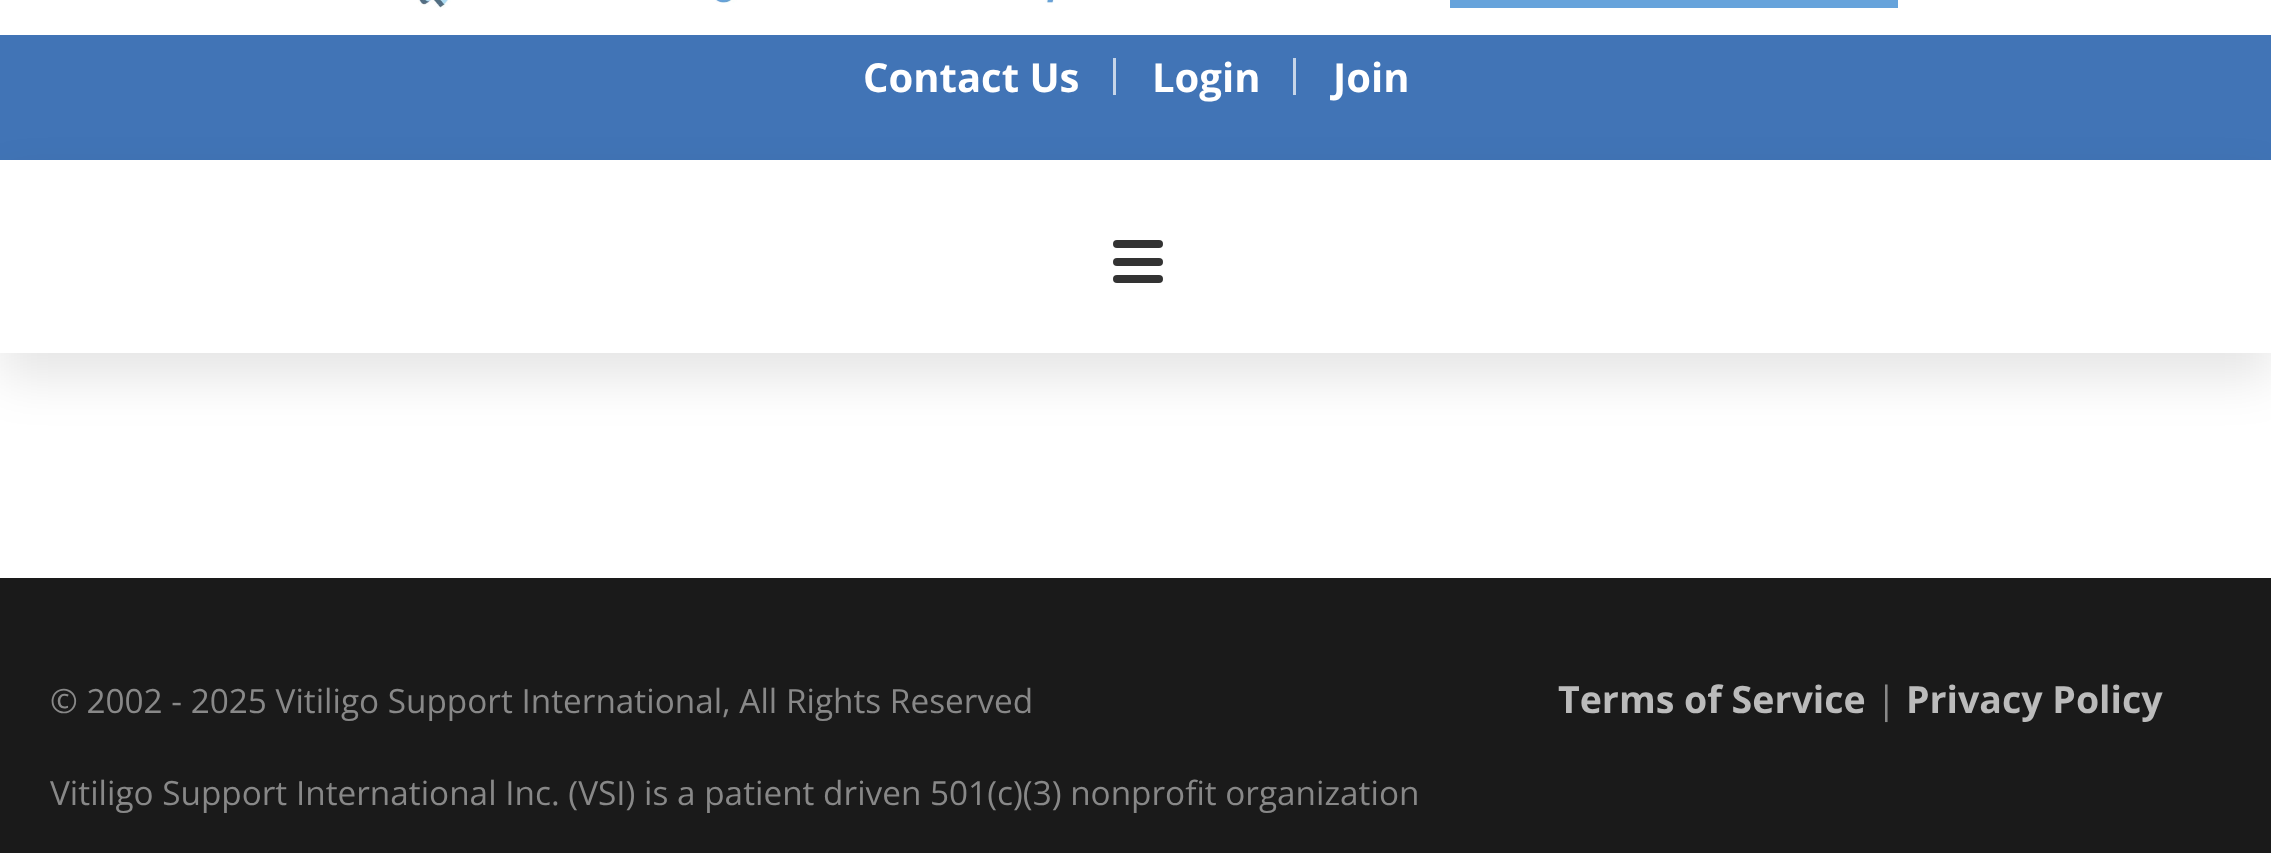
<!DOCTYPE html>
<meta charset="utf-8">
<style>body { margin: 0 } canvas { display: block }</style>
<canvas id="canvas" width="2271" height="853"></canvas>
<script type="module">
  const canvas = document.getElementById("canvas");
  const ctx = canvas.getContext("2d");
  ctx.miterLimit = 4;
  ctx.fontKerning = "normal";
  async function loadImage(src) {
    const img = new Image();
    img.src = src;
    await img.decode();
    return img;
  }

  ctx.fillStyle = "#ffffff";
  ctx.fillRect(0, 0, 2271, 853);
  ctx.fillStyle = "#4174b6";
  ctx.fillRect(0, 35, 2271, 125);
  ctx.drawImage(await loadImage("img1.png"), 418, 0, 636, 8);
  ctx.fillStyle = "#66a3db";
  ctx.fillRect(1450, 0, 448, 8);
  ctx.font = "bold 40px Open Sans";
  ctx.fillStyle = "#ffffff";
  ctx.fillText("Contact Us", 863, 92);
  ctx.fillStyle = "#c6d5e9";
  ctx.fillRect(1113, 58, 3, 37);
  ctx.fillStyle = "#ffffff";
  ctx.fillText("Login", 1152, 92);
  ctx.fillStyle = "#c6d5e9";
  ctx.fillRect(1293, 58, 3, 37);
  ctx.fillStyle = "#ffffff";
  ctx.fillText("Join", 1333, 92);
  ctx.fillStyle = "rgba(0, 0, 0, 0.1)";
  ctx.filter = "blur(25px)";
  ctx.beginPath();
  ctx.rect(0, 185, 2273, 193);
  ctx.fill();
  ctx.filter = "none";
  ctx.fillStyle = "#ffffff";
  ctx.fillRect(0, 160, 2271, 193);
  ctx.fillStyle = "#333333";
  ctx.beginPath();
  ctx.roundRect(1113, 240, 50, 8, 4);
  ctx.fill();
  ctx.beginPath();
  ctx.roundRect(1113, 258, 50, 8, 4);
  ctx.fill();
  ctx.beginPath();
  ctx.roundRect(1113, 275, 50, 8, 4);
  ctx.fill();
  ctx.fillStyle = "#1a1a1a";
  ctx.fillRect(0, 578, 2271, 275);
  ctx.font = "33.35px Open Sans";
  ctx.fillStyle = "#888888";
  ctx.fillText("© 2002 - 2025 Vitiligo Support International, All Rights Reserved", 50, 713);
  ctx.fillText("Vitiligo Support International Inc. (VSI) is a patient driven 501(c)(3) nonprofit organization", 50, 805);
  ctx.font = "bold 37.5px Open Sans";
  ctx.fillStyle = "#bbbbbb";
  ctx.fillText("Terms of Service", 1558, 713);
  ctx.font = "37.5px Open Sans";
  ctx.fillStyle = "#888888";
  ctx.fillText("|", 1876, 713);
  ctx.font = "bold 37.5px Open Sans";
  ctx.fillStyle = "#bbbbbb";
  ctx.fillText("Privacy Policy", 1906, 713);
</script>
